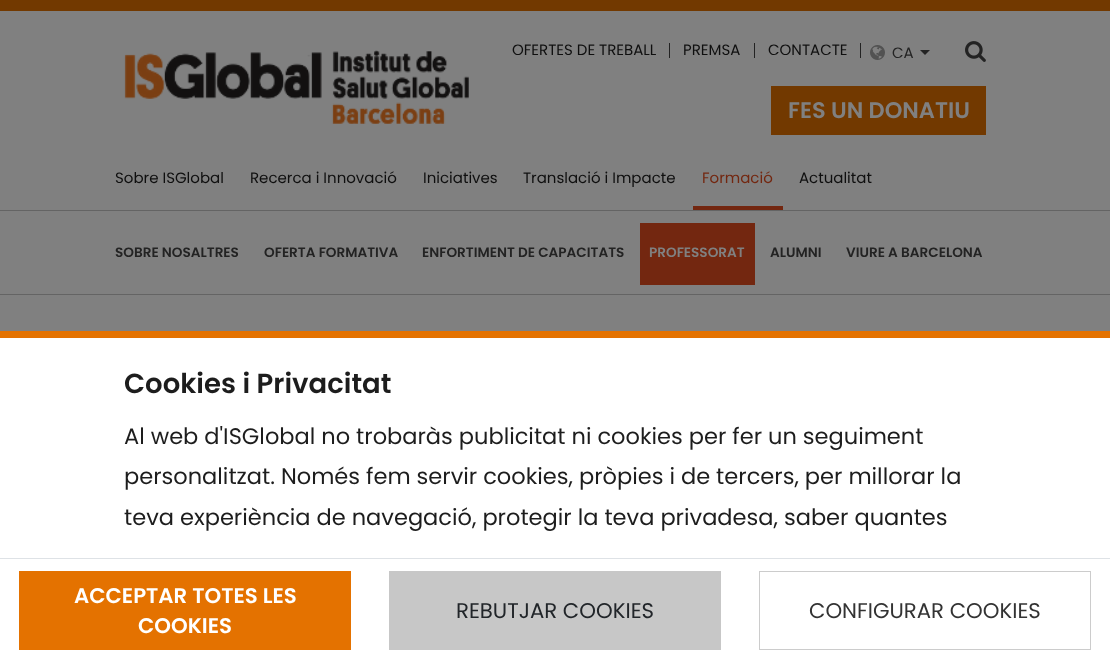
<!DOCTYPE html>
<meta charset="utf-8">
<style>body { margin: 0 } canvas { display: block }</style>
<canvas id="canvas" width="1110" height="662"></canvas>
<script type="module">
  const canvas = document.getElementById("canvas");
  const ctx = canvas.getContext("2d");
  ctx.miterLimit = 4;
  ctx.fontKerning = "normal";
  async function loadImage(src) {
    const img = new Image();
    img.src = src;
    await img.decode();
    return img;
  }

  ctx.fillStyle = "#808080";
  ctx.fillRect(0, 0, 1110, 662);
  ctx.fillStyle = "#723900";
  ctx.fillRect(0, 0, 1110, 11);
  ctx.fillStyle = "#646464";
  ctx.fillRect(0, 294, 1110, 1);
  ctx.drawImage(await loadImage("img1.png"), 124, 50, 345, 74);
  ctx.fillStyle = "#232323";
  ctx.fillRect(669, 43, 1, 15);
  ctx.font = "15px Poppins";
  ctx.fillStyle = "#0f0f0f";
  ctx.fillText("OFERTES DE TREBALL", 512, 55);
  ctx.fillStyle = "#232323";
  ctx.fillRect(754, 43, 1, 15);
  ctx.fillStyle = "#0f0f0f";
  ctx.fillText("PREMSA", 683, 55);
  ctx.fillStyle = "#232323";
  ctx.fillRect(860, 43, 1, 15);
  ctx.fillStyle = "#0f0f0f";
  ctx.fillText("CONTACTE", 768, 55);
  ctx.drawImage(await loadImage("img2.png"), 870, 45, 15, 15);
  ctx.fillStyle = "#232323";
  ctx.fillText("CA", 892, 58);
  ctx.beginPath();
  ctx.moveTo(920, 50);
  ctx.lineTo(930, 50);
  ctx.lineTo(925, 55);
  ctx.closePath();
  ctx.fill();
  ctx.drawImage(await loadImage("img3.png"), 965, 41, 21, 21);
  ctx.fillStyle = "#723900";
  ctx.fillRect(771, 86, 215, 49);
  ctx.font = "600 22.5px Poppins";
  ctx.fillStyle = "#808080";
  ctx.fillText("FES UN DONATIU", 788, 118);
  ctx.font = "15px Poppins";
  ctx.fillStyle = "#0f0f0f";
  ctx.fillText("Sobre ISGlobal", 115, 183);
  ctx.fillStyle = "#732710";
  ctx.fillRect(693, 206, 90, 4);
  ctx.fillText("Formació", 702, 183);
  ctx.font = "600 13.6px Poppins";
  ctx.fillStyle = "#232323";
  ctx.fillText("SOBRE NOSALTRES", 115, 257);
  ctx.fillText("OFERTA FORMATIVA", 264, 257);
  ctx.fillText("ENFORTIMENT DE CAPACITATS", 422, 257);
  ctx.fillStyle = "#732710";
  ctx.fillRect(640, 223, 115, 62);
  ctx.fillStyle = "#808080";
  ctx.fillText("PROFESSORAT", 649, 257);
  ctx.fillStyle = "#232323";
  ctx.fillText("ALUMNI", 770, 257);
  ctx.fillText("VIURE A BARCELONA", 846, 257);
  ctx.font = "15px Poppins";
  ctx.fillStyle = "#0f0f0f";
  ctx.fillText("Recerca i Innovació", 250, 183);
  ctx.fillText("Iniciatives", 423, 183);
  ctx.fillText("Translació i Impacte", 523, 183);
  ctx.fillText("Actualitat", 799, 183);
  ctx.fillStyle = "#646464";
  ctx.fillRect(0, 210, 1110, 1);
  ctx.fillStyle = "#ffffff";
  ctx.fillRect(0, 338, 1110, 220);
  ctx.fillStyle = "#e47200";
  ctx.fillRect(0, 331, 1110, 7);
  ctx.font = "600 27.5px Poppins";
  ctx.fillStyle = "#1d1d1d";
  ctx.fillText("Cookies i Privacitat", 124, 393);
  ctx.font = "22.5px Poppins";
  ctx.fillText("Al web d'ISGlobal no trobaràs publicitat ni cookies per fer un seguiment", 124, 444);
  ctx.fillText("personalitzat. Només fem servir cookies, pròpies i de tercers, per millorar la", 124, 484);
  ctx.fillText("teva experiència de navegació, protegir la teva privadesa, saber quantes", 124, 525);
  ctx.fillStyle = "#ffffff";
  ctx.fillRect(0, 559, 1110, 103);
  ctx.fillStyle = "#dee2e6";
  ctx.fillRect(0, 558, 1110, 1);
  ctx.fillStyle = "#e47200";
  ctx.fillRect(19, 571, 332, 79);
  ctx.font = "600 21.25px Poppins";
  ctx.fillStyle = "#ffffff";
  ctx.fillText("ACCEPTAR TOTES LES", 74, 603);
  ctx.fillText("COOKIES", 138, 633);
  ctx.fillStyle = "#c7c7c7";
  ctx.fillRect(389, 571, 332, 79);
  ctx.font = "21.25px Poppins";
  ctx.fillStyle = "#212529";
  ctx.fillText("REBUTJAR COOKIES", 456, 618);
  ctx.strokeStyle = "#cccccc";
  ctx.strokeRect(759.5, 571.5, 331, 78);
  ctx.fillStyle = "#333333";
  ctx.fillText("CONFIGURAR COOKIES", 809, 618);
</script>
